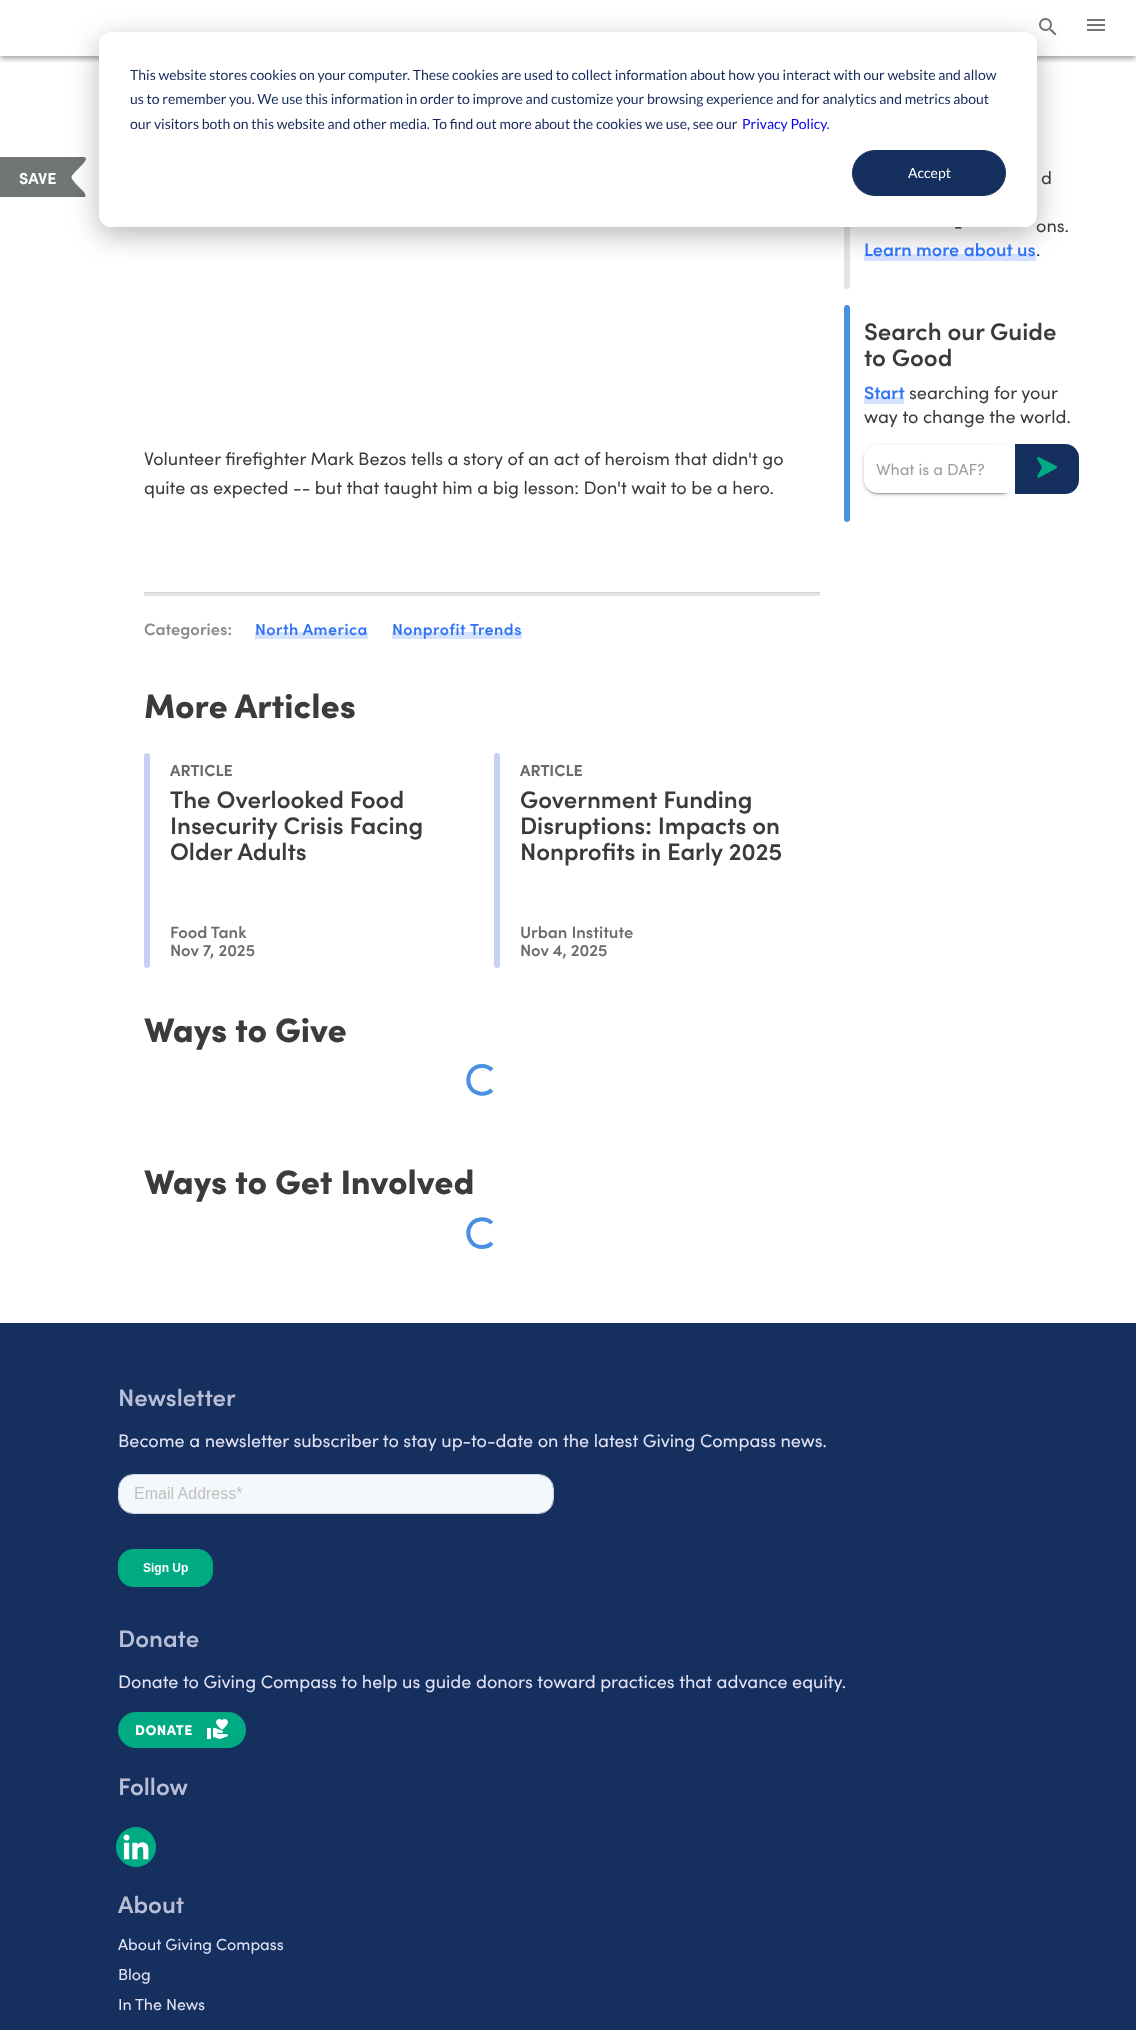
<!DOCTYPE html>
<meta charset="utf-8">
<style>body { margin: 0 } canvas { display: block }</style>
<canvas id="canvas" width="1136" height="2030"></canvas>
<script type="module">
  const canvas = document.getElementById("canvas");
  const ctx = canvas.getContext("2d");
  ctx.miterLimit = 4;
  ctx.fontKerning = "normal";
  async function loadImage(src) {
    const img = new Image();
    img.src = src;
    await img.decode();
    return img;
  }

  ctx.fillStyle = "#ffffff";
  ctx.fillRect(0, 0, 1136, 2030);
  ctx.fillStyle = "#e1e3e5";
  ctx.beginPath();
  ctx.roundRect(844, 66, 6, 223, 3);
  ctx.fill();
  ctx.save();
  ctx.beginPath();
  ctx.rect(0, 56, 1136, 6);
  ctx.clip();
  ctx.fillStyle = "rgba(0, 0, 0, 0.12)";
  ctx.filter = "blur(5px)";
  ctx.beginPath();
  ctx.rect(0, 1, 1136, 56);
  ctx.fill();
  ctx.filter = "none";
  ctx.restore();
  ctx.save();
  ctx.beginPath();
  ctx.rect(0, 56, 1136, 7);
  ctx.clip();
  ctx.fillStyle = "rgba(0, 0, 0, 0.14)";
  ctx.filter = "blur(2.5px)";
  ctx.beginPath();
  ctx.rect(0, 4, 1136, 56);
  ctx.fill();
  ctx.filter = "none";
  ctx.restore();
  ctx.save();
  ctx.beginPath();
  ctx.rect(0, 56, 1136, 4);
  ctx.clip();
  ctx.fillStyle = "rgba(0, 0, 0, 0.2)";
  ctx.filter = "blur(2px)";
  ctx.beginPath();
  ctx.rect(1, 3, 1134, 54);
  ctx.fill();
  ctx.filter = "none";
  ctx.restore();
  ctx.drawImage(await loadImage("img1.png"), 1039, 18, 18, 18);
  ctx.fillStyle = "#707576";
  ctx.beginPath();
  ctx.moveTo(84, 197);
  ctx.lineTo(-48, 197);
  ctx.lineTo(-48, 157);
  ctx.lineTo(84, 157);
  ctx.lineTo(86, 158);
  ctx.bezierCurveTo(87, 161, 78, 169, 76, 171);
  ctx.bezierCurveTo(70, 178, 70, 176, 76, 184);
  ctx.lineTo(81, 189);
  ctx.bezierCurveTo(82, 190, 87, 194, 85, 197);
  ctx.closePath();
  ctx.fill("evenodd");
  ctx.fillStyle = "#d6e3fe";
  ctx.fillRect(864, 254, 172, 7);
  ctx.fillStyle = "rgba(0, 0, 0, 0.28)";
  ctx.filter = "blur(14px)";
  ctx.beginPath();
  ctx.roundRect(99, 40, 938, 195, 12);
  ctx.fill();
  ctx.filter = "none";
  ctx.font = "18px Sofia";
  ctx.fillStyle = "#3b3b3b";
  ctx.fillText("ons.", 1036, 232);
  ctx.fillStyle = "#ffffff";
  ctx.beginPath();
  ctx.roundRect(99, 32, 938, 195, 12);
  ctx.fill();
  ctx.font = "14px Lato";
  ctx.fillStyle = "#15295a";
  ctx.fillText("This website stores cookies on your computer. These cookies are used to collect information about how you interact with our website and allow", 130, 80);
  ctx.fillText("us to remember you. We use this information in order to improve and customize your browsing experience and for analytics and metrics about", 130, 104);
  ctx.fillText("our visitors both on this website and other media. To find out more about the cookies we use, see our", 130, 129);
  ctx.fillStyle = "#0000ee";
  ctx.fillText("Privacy Policy.", 742, 129);
  ctx.fillStyle = "#152f5f";
  ctx.beginPath();
  ctx.roundRect(852.5, 150.5, 153, 45, 22.5);
  ctx.fill();
  ctx.strokeStyle = "#152f5f";
  ctx.stroke();
  ctx.fillStyle = "#ffffff";
  ctx.fillText("Accept", 908, 178);
  ctx.drawImage(await loadImage("img2.png"), 1087, 19, 18, 12);
  ctx.font = "bold 16px Sofia";
  ctx.fillText("SAVE", 19, 184);
  ctx.font = "18px Sofia";
  ctx.fillStyle = "#3b3b3b";
  ctx.fillText("d", 1041, 184);
  ctx.fillText("-", 954, 232);
  ctx.font = "600 18px Sofia";
  ctx.fillStyle = "#3174f8";
  ctx.fillText("Learn more about us", 864, 256);
  ctx.font = "18px Sofia";
  ctx.fillStyle = "#3b3b3b";
  ctx.fillText(".", 1036, 256);
  ctx.fillStyle = "#4a90e2";
  ctx.beginPath();
  ctx.roundRect(844, 305, 6, 217, 3);
  ctx.fill();
  ctx.font = "600 24px Sofia";
  ctx.fillStyle = "#3b3b3b";
  ctx.fillText("Search our Guide", 864, 340);
  ctx.fillText("to Good", 864, 366);
  ctx.fillStyle = "#d6e3fe";
  ctx.fillRect(864, 397, 40, 7);
  ctx.font = "600 18px Sofia";
  ctx.fillStyle = "#3174f8";
  ctx.fillText("Start", 864, 399);
  ctx.font = "18px Sofia";
  ctx.fillStyle = "#3b3b3b";
  ctx.fillText("searching for your", 909, 399);
  ctx.fillText("way to change the world.", 864, 423);
  ctx.fillStyle = "rgba(0, 0, 0, 0.12)";
  ctx.filter = "blur(2.5px)";
  ctx.beginPath();
  ctx.roundRect(864, 446, 151, 48, 14);
  ctx.fill();
  ctx.filter = "none";
  ctx.fillStyle = "rgba(0, 0, 0, 0.14)";
  ctx.filter = "blur(1px)";
  ctx.beginPath();
  ctx.roundRect(864, 447, 151, 48, 14);
  ctx.fill();
  ctx.filter = "none";
  ctx.fillStyle = "rgba(0, 0, 0, 0.2)";
  ctx.filter = "blur(0.5px)";
  ctx.beginPath();
  ctx.roundRect(866, 450, 147, 44, 12);
  ctx.fill();
  ctx.filter = "none";
  ctx.fillStyle = "#ffffff";
  ctx.beginPath();
  ctx.roundRect(864, 445, 151, 48, [14, 0, 0, 14]);
  ctx.fill();
  ctx.font = "16px Sofia";
  ctx.fillStyle = "#9e9e9e";
  ctx.fillText("What is a DAF?", 876, 475);
  ctx.fillStyle = "#152f5f";
  ctx.beginPath();
  ctx.roundRect(1015, 444, 64, 50, [0, 14, 14, 0]);
  ctx.fill();
  ctx.drawImage(await loadImage("img3.png"), 1037, 457, 20, 21);
  ctx.font = "18px Sofia";
  ctx.fillStyle = "#3b3b3b";
  ctx.fillText("Volunteer firefighter Mark Bezos tells a story of an act of heroism that didn't go", 144, 465);
  ctx.fillText("quite as expected -- but that taught him a big lesson: Don't wait to be a hero.", 144, 494);
  ctx.fillStyle = "#e1e3e5";
  ctx.fillRect(144, 593, 676, 3);
  ctx.fillStyle = "#d0d2d4";
  ctx.fillRect(144, 592, 676, 1);
  ctx.font = "600 16.5px Sofia";
  ctx.fillStyle = "#898989";
  ctx.fillText("Categories:", 144, 635);
  ctx.fillStyle = "#d6e3fe";
  ctx.fillRect(255, 632, 113, 7);
  ctx.letterSpacing = "0.5px";
  ctx.font = "600 16px Sofia";
  ctx.fillStyle = "#3174f8";
  ctx.fillText("North America", 255, 635);
  ctx.fillStyle = "#d6e3fe";
  ctx.fillRect(392, 632, 130, 7);
  ctx.fillStyle = "#3174f8";
  ctx.fillText("Nonprofit Trends", 392, 635);
  ctx.letterSpacing = "0px";
  ctx.font = "900 34px Sofia";
  ctx.fillStyle = "#3b3b3b";
  ctx.fillText("More Articles", 144, 718);
  ctx.fillStyle = "#c7d1f6";
  ctx.beginPath();
  ctx.roundRect(144, 753, 6, 215, 3);
  ctx.fill();
  ctx.font = "bold 16px Sofia";
  ctx.fillStyle = "#6c6c6c";
  ctx.fillText("ARTICLE", 170, 776);
  ctx.font = "600 24px Sofia";
  ctx.fillStyle = "#3b3b3b";
  ctx.fillText("The Overlooked Food", 170, 808);
  ctx.fillText("Insecurity Crisis Facing", 170, 834);
  ctx.fillText("Older Adults", 170, 860);
  ctx.font = "600 16.5px Sofia";
  ctx.fillStyle = "#6c6c6c";
  ctx.fillText("Food Tank", 170, 938);
  ctx.fillText("Nov 7, 2025", 170, 956);
  ctx.fillStyle = "#c7d1f6";
  ctx.beginPath();
  ctx.roundRect(494, 753, 6, 215, 3);
  ctx.fill();
  ctx.font = "bold 16px Sofia";
  ctx.fillStyle = "#6c6c6c";
  ctx.fillText("ARTICLE", 520, 776);
  ctx.font = "600 24px Sofia";
  ctx.fillStyle = "#3b3b3b";
  ctx.fillText("Government Funding", 520, 808);
  ctx.fillText("Disruptions: Impacts on", 520, 834);
  ctx.fillText("Nonprofits in Early 2025", 520, 860);
  ctx.font = "600 16.5px Sofia";
  ctx.fillStyle = "#6c6c6c";
  ctx.fillText("Urban Institute", 520, 938);
  ctx.fillText("Nov 4, 2025", 520, 956);
  ctx.font = "900 34px Sofia";
  ctx.fillStyle = "#3b3b3b";
  ctx.fillText("Ways to Give", 144, 1042);
  ctx.beginPath();
  ctx.moveTo(492, 1090);
  ctx.bezierCurveTo(488.5, 1093, 484, 1094.5, 479.5, 1093.5);
  ctx.bezierCurveTo(463, 1090.5, 465.5, 1066, 482, 1066);
  ctx.bezierCurveTo(485.5, 1066, 489.5, 1067.5, 492, 1070);
  ctx.strokeStyle = "#4a90e2";
  ctx.lineWidth = 4;
  ctx.stroke();
  ctx.fillText("Ways to Get Involved", 144, 1194);
  ctx.beginPath();
  ctx.moveTo(492, 1243);
  ctx.bezierCurveTo(489.5, 1245.5, 485.5, 1247, 482, 1247);
  ctx.bezierCurveTo(465.5, 1247, 463, 1222.5, 479.5, 1219.5);
  ctx.bezierCurveTo(484, 1218.5, 488.5, 1220, 492, 1223);
  ctx.stroke();
  ctx.fillStyle = "#152f5f";
  ctx.fillRect(0, 1323, 1136, 707);
  ctx.font = "600 24px Sofia";
  ctx.fillStyle = "#b9bed6";
  ctx.fillText("Newsletter", 118, 1406);
  ctx.font = "18px Sofia";
  ctx.fillStyle = "#e2e2f4";
  ctx.fillText("Become a newsletter subscriber to stay up-to-date on the latest Giving Compass news.", 118, 1447);
  ctx.drawImage(await loadImage("img4.png"), 118, 1474, 436, 113);
  ctx.font = "600 24px Sofia";
  ctx.fillStyle = "#b9bed6";
  ctx.fillText("Donate", 118, 1647);
  ctx.font = "18px Sofia";
  ctx.fillStyle = "#e2e2f4";
  ctx.fillText("Donate to Giving Compass to help us guide donors toward practices that advance equity.", 118, 1688);
  ctx.fillStyle = "#00ab84";
  ctx.beginPath();
  ctx.roundRect(118, 1712, 128, 36, 18);
  ctx.fill();
  ctx.letterSpacing = "0.5px";
  ctx.font = "900 14px Sofia";
  ctx.fillStyle = "#ffffff";
  ctx.fillText("DONATE", 135, 1735);
  ctx.drawImage(await loadImage("img5.png"), 207, 1719, 21, 20);
  ctx.letterSpacing = "0px";
  ctx.font = "600 24px Sofia";
  ctx.fillStyle = "#b9bed6";
  ctx.fillText("Follow", 118, 1795);
  ctx.fillStyle = "#ffffff";
  ctx.beginPath();
  ctx.arc(136, 1848, 18, 0, Math.PI * 2);
  ctx.fill();
  ctx.drawImage(await loadImage("img6.png"), 116, 1827, 40, 40);
  ctx.fillStyle = "#b9bed6";
  ctx.fillText("About", 118, 1913);
  ctx.font = "16px Sofia";
  ctx.fillStyle = "#e2e2f4";
  ctx.fillText("About Giving Compass", 118, 1950);
  ctx.fillText("Blog", 118, 1980);
  ctx.fillText("In The News", 118, 2010);
</script>
